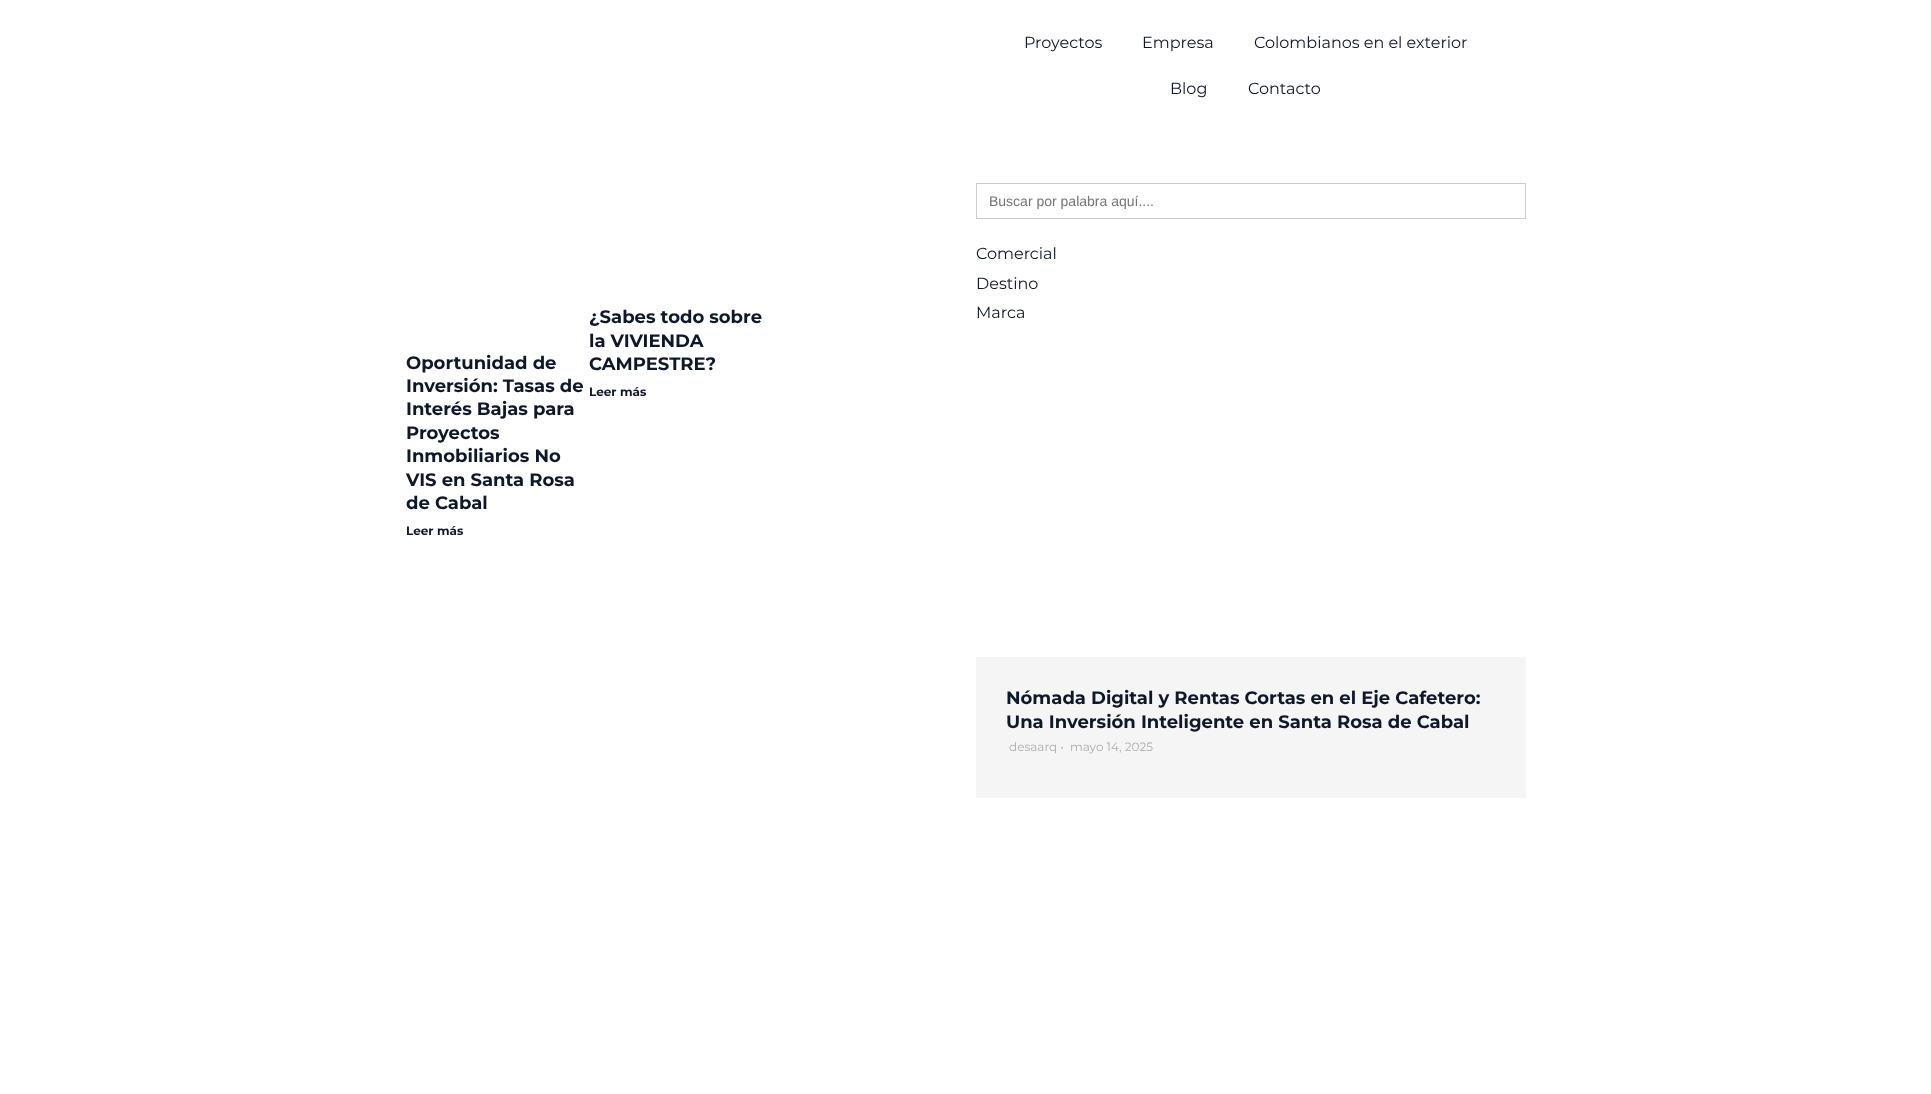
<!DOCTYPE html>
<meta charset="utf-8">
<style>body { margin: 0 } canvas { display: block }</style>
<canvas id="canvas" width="1931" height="1094"></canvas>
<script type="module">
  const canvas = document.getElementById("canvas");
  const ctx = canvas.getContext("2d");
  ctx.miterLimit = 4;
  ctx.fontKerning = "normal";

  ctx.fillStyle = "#ffffff";
  ctx.fillRect(0, 0, 1931, 1094);
  ctx.font = "16px Montserrat";
  ctx.fillStyle = "#0f172a";
  ctx.fillText("Proyectos", 1024, 48);
  ctx.fillText("Empresa", 1142, 48);
  ctx.fillText("Colombianos en el exterior", 1254, 48);
  ctx.fillText("Blog", 1170, 94);
  ctx.fillText("Contacto", 1248, 94);
  ctx.font = "bold 18px Montserrat";
  ctx.fillText("Oportunidad de", 406, 369);
  ctx.fillText("Inversión: Tasas de", 406, 392);
  ctx.fillText("Interés Bajas para", 406, 415);
  ctx.fillText("Proyectos", 406, 439);
  ctx.fillText("Inmobiliarios No", 406, 462);
  ctx.fillText("VIS en Santa Rosa", 406, 486);
  ctx.fillText("de Cabal", 406, 509);
  ctx.font = "bold 12px Montserrat";
  ctx.fillText("Leer más", 406, 535);
  ctx.font = "bold 18px Montserrat";
  ctx.fillText("¿Sabes todo sobre", 589, 323);
  ctx.fillText("la VIVIENDA", 589, 347);
  ctx.fillText("CAMPESTRE?", 589, 370);
  ctx.font = "bold 12px Montserrat";
  ctx.fillText("Leer más", 589, 396);
  ctx.strokeStyle = "#cccccc";
  ctx.strokeRect(976.5, 183.5, 549, 35);
  ctx.font = "14px Liberation Sans";
  ctx.fillStyle = "#757575";
  ctx.fillText("Buscar por palabra aquí....", 989, 206);
  ctx.font = "16px Montserrat";
  ctx.fillStyle = "#0f172a";
  ctx.fillText("Comercial", 976, 259);
  ctx.fillText("Destino", 976, 289);
  ctx.fillText("Marca", 976, 318);
  ctx.fillStyle = "#f5f5f5";
  ctx.fillRect(976, 657, 550, 141);
  ctx.font = "bold 18px Montserrat";
  ctx.fillStyle = "#0f172a";
  ctx.fillText("Nómada Digital y Rentas Cortas en el Eje Cafetero:", 1006, 704);
  ctx.fillText("Una Inversión Inteligente en Santa Rosa de Cabal", 1006, 728);
  ctx.font = "12px Montserrat";
  ctx.fillStyle = "#adadad";
  ctx.fillText("desaarq •", 1009, 751);
  ctx.fillText("mayo 14, 2025", 1070, 751);
</script>
